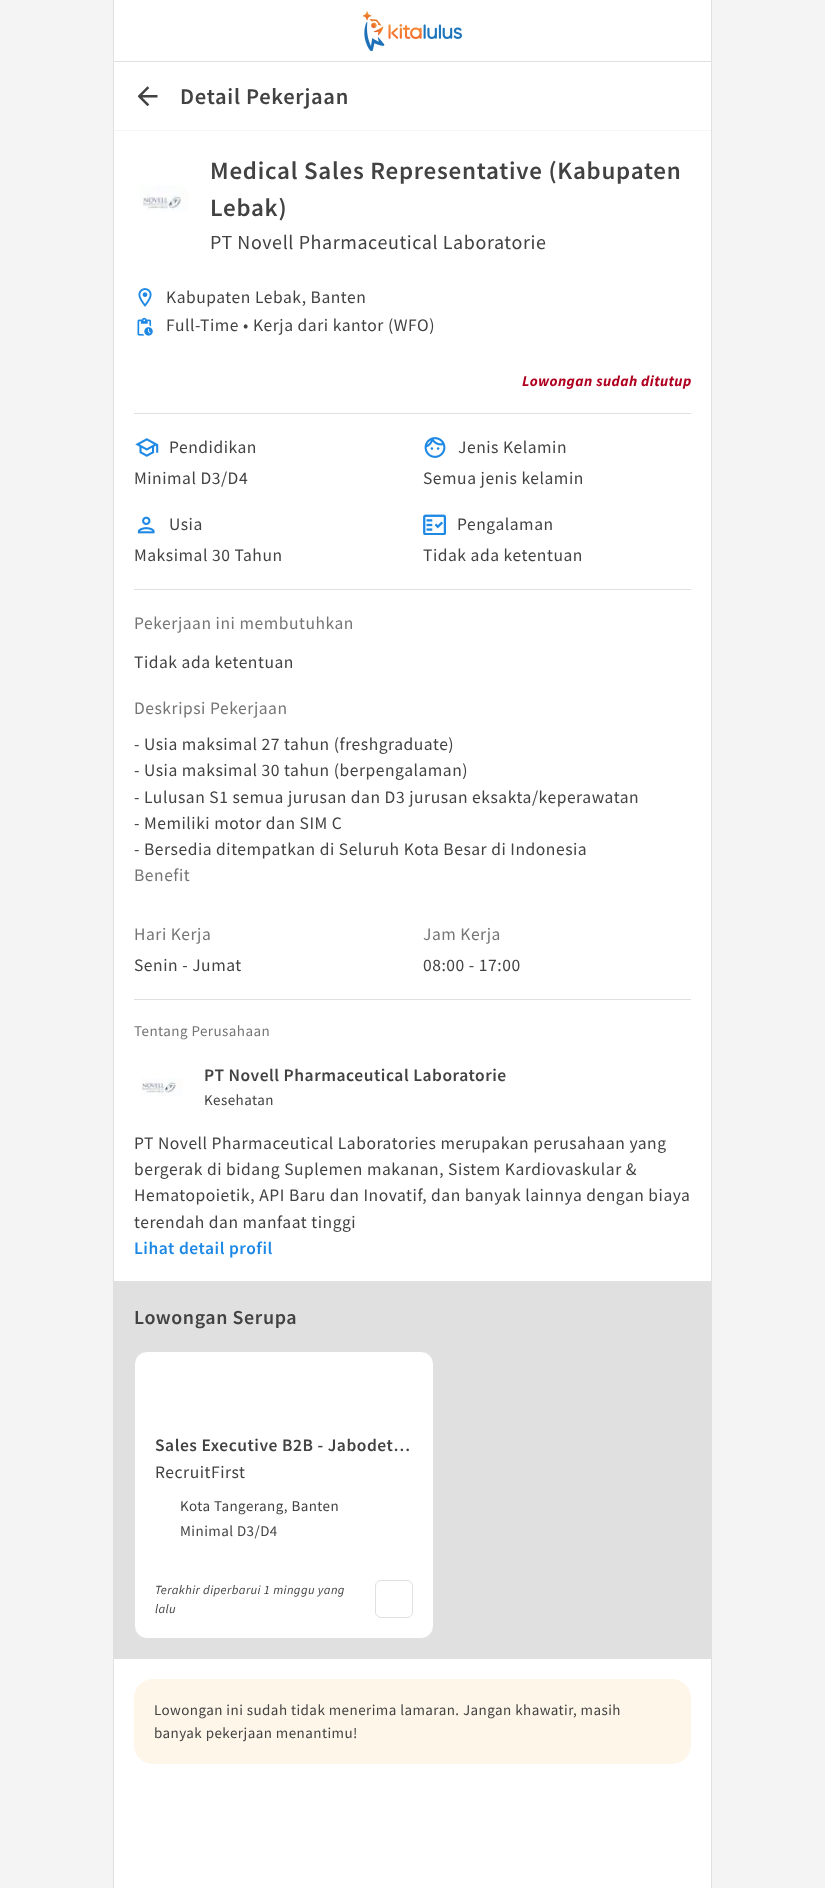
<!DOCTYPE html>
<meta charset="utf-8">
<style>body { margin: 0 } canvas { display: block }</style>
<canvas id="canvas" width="825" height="1888"></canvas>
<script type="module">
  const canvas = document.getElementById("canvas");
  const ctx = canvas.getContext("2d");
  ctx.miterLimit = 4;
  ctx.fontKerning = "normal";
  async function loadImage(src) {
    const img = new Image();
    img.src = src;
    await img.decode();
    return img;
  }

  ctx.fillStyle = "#f4f4f4";
  ctx.fillRect(0, 0, 825, 1888);
  ctx.fillStyle = "#ffffff";
  ctx.fillRect(114, 0, 597, 1888);
  ctx.fillStyle = "#e0e0e0";
  ctx.fillRect(711, 0, 1, 1888);
  ctx.fillRect(113, 0, 1, 1888);
  ctx.fillRect(114, 61, 597, 1);
  ctx.drawImage(await loadImage("img1.png"), 363, 11, 99, 40);
  ctx.fillStyle = "#f5f5f5";
  ctx.fillRect(114, 130, 597, 1);
  ctx.drawImage(await loadImage("img2.png"), 138, 86, 20, 20);
  ctx.letterSpacing = "0.7px";
  ctx.font = "600 22.5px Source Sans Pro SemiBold";
  ctx.fillStyle = "#424242";
  ctx.fillText("Detail Pekerjaan", 180, 104);
  ctx.drawImage(await loadImage("img3.png"), 140, 185, 49, 27);
  ctx.letterSpacing = "0.75px";
  ctx.font = "600 25px Source Sans Pro SemiBold";
  ctx.fillText("Medical Sales Representative (Kabupaten", 210, 179);
  ctx.fillText("Lebak)", 210, 216);
  ctx.letterSpacing = "0.6px";
  ctx.font = "20px Source Sans Pro";
  ctx.fillText("PT Novell Pharmaceutical Laboratorie", 210, 249);
  ctx.drawImage(await loadImage("img4.png"), 138, 288, 14, 19);
  ctx.letterSpacing = "0.53px";
  ctx.font = "17.5px Source Sans Pro";
  ctx.fillText("Kabupaten Lebak, Banten", 166, 303);
  ctx.drawImage(await loadImage("img5.png"), 137, 317, 16, 19);
  ctx.fillText("Full-Time • Kerja dari kantor (WFO)", 166, 331);
  ctx.letterSpacing = "0.45px";
  ctx.font = "italic bold 15px Source Sans Pro";
  ctx.fillStyle = "#b00020";
  ctx.fillText("Lowongan sudah ditutup", 522, 386);
  ctx.fillStyle = "#e0e0e0";
  ctx.fillRect(134, 413, 557, 1);
  ctx.drawImage(await loadImage("img6.png"), 135, 438, 24, 19);
  ctx.letterSpacing = "0.53px";
  ctx.font = "17.5px Source Sans Pro";
  ctx.fillStyle = "#424242";
  ctx.fillText("Pendidikan", 169, 453);
  ctx.fillText("Minimal D3/D4", 134, 484);
  ctx.drawImage(await loadImage("img7.png"), 424, 437, 22, 21);
  ctx.fillText("Jenis Kelamin", 458, 453);
  ctx.fillText("Semua jenis kelamin", 423, 484);
  ctx.drawImage(await loadImage("img8.png"), 137, 516, 18, 18);
  ctx.fillText("Usia", 169, 530);
  ctx.fillText("Maksimal 30 Tahun", 134, 561);
  ctx.drawImage(await loadImage("img9.png"), 423, 514, 23, 21);
  ctx.fillText("Pengalaman", 457, 530);
  ctx.fillText("Tidak ada ketentuan", 423, 561);
  ctx.fillStyle = "#e0e0e0";
  ctx.fillRect(134, 589, 557, 1);
  ctx.fillStyle = "#757575";
  ctx.fillText("Pekerjaan ini membutuhkan", 134, 629);
  ctx.fillStyle = "#424242";
  ctx.fillText("Tidak ada ketentuan", 134, 668);
  ctx.fillStyle = "#757575";
  ctx.fillText("Deskripsi Pekerjaan", 134, 714);
  ctx.fillStyle = "#424242";
  ctx.fillText("- Usia maksimal 27 tahun (freshgraduate)", 134, 750);
  ctx.fillText("- Usia maksimal 30 tahun (berpengalaman)", 134, 776);
  ctx.fillText("- Lulusan S1 semua jurusan dan D3 jurusan eksakta/keperawatan", 134, 803);
  ctx.fillText("- Memiliki motor dan SIM C", 134, 829);
  ctx.fillText("- Bersedia ditempatkan di Seluruh Kota Besar di Indonesia", 134, 855);
  ctx.fillStyle = "#757575";
  ctx.fillText("Benefit", 134, 881);
  ctx.fillText("Hari Kerja", 134, 940);
  ctx.fillStyle = "#424242";
  ctx.fillText("Senin - Jumat", 134, 971);
  ctx.fillStyle = "#757575";
  ctx.fillText("Jam Kerja", 423, 940);
  ctx.fillStyle = "#424242";
  ctx.fillText("08:00 - 17:00", 423, 971);
  ctx.fillStyle = "#e0e0e0";
  ctx.fillRect(134, 999, 557, 1);
  ctx.letterSpacing = "0.45px";
  ctx.font = "15px Source Sans Pro";
  ctx.fillStyle = "#757575";
  ctx.fillText("Tentang Perusahaan", 134, 1036);
  ctx.drawImage(await loadImage("img10.png"), 142, 1078, 41, 18);
  ctx.letterSpacing = "0.53px";
  ctx.font = "600 17.5px Source Sans Pro SemiBold";
  ctx.fillStyle = "#424242";
  ctx.fillText("PT Novell Pharmaceutical Laboratorie", 204, 1081);
  ctx.letterSpacing = "0.45px";
  ctx.font = "15px Source Sans Pro";
  ctx.fillText("Kesehatan", 204, 1105);
  ctx.letterSpacing = "0.53px";
  ctx.font = "17.5px Source Sans Pro";
  ctx.fillText("PT Novell Pharmaceutical Laboratories merupakan perusahaan yang", 134, 1149);
  ctx.fillText("bergerak di bidang Suplemen makanan, Sistem Kardiovaskular &", 134, 1175);
  ctx.fillText("Hematopoietik, API Baru dan Inovatif, dan banyak lainnya dengan biaya", 134, 1201);
  ctx.fillText("terendah dan manfaat tinggi", 134, 1228);
  ctx.font = "600 17.5px Source Sans Pro SemiBold";
  ctx.fillStyle = "#1e88e5";
  ctx.fillText("Lihat detail profil", 134, 1254);
  ctx.fillStyle = "#e0e0e0";
  ctx.fillRect(114, 1281, 597, 378);
  ctx.letterSpacing = "0.6px";
  ctx.font = "600 20px Source Sans Pro SemiBold";
  ctx.fillStyle = "#424242";
  ctx.fillText("Lowongan Serupa", 134, 1324);
  ctx.fillStyle = "#ffffff";
  ctx.beginPath();
  ctx.roundRect(134.5, 1351.5, 299, 287, 12.5);
  ctx.fill();
  ctx.strokeStyle = "#e0e0e0";
  ctx.stroke();
  ctx.letterSpacing = "0.53px";
  ctx.font = "600 17.5px Source Sans Pro SemiBold";
  ctx.fillStyle = "#424242";
  ctx.fillText("Sales Executive B2B - Jabodet…", 155, 1451);
  ctx.font = "17.5px Source Sans Pro";
  ctx.fillText("RecruitFirst", 155, 1478);
  ctx.letterSpacing = "0.45px";
  ctx.font = "15px Source Sans Pro";
  ctx.fillText("Kota Tangerang, Banten", 180, 1511);
  ctx.fillText("Minimal D3/D4", 180, 1536);
  ctx.letterSpacing = "0.4px";
  ctx.font = "italic 12.5px Source Sans Pro";
  ctx.fillText("Terakhir diperbarui 1 minggu yang", 155, 1594);
  ctx.fillText("lalu", 155, 1613);
  ctx.beginPath();
  ctx.roundRect(375.5, 1580.5, 37, 37, 5.5);
  ctx.stroke();
  ctx.fillStyle = "#fff6ea";
  ctx.beginPath();
  ctx.roundRect(134, 1679, 557, 85, 19);
  ctx.fill();
  ctx.letterSpacing = "0.45px";
  ctx.font = "15px Source Sans Pro";
  ctx.fillStyle = "#424242";
  ctx.fillText("Lowongan ini sudah tidak menerima lamaran. Jangan khawatir, masih", 154, 1715);
  ctx.fillText("banyak pekerjaan menantimu!", 154, 1738);
</script>
